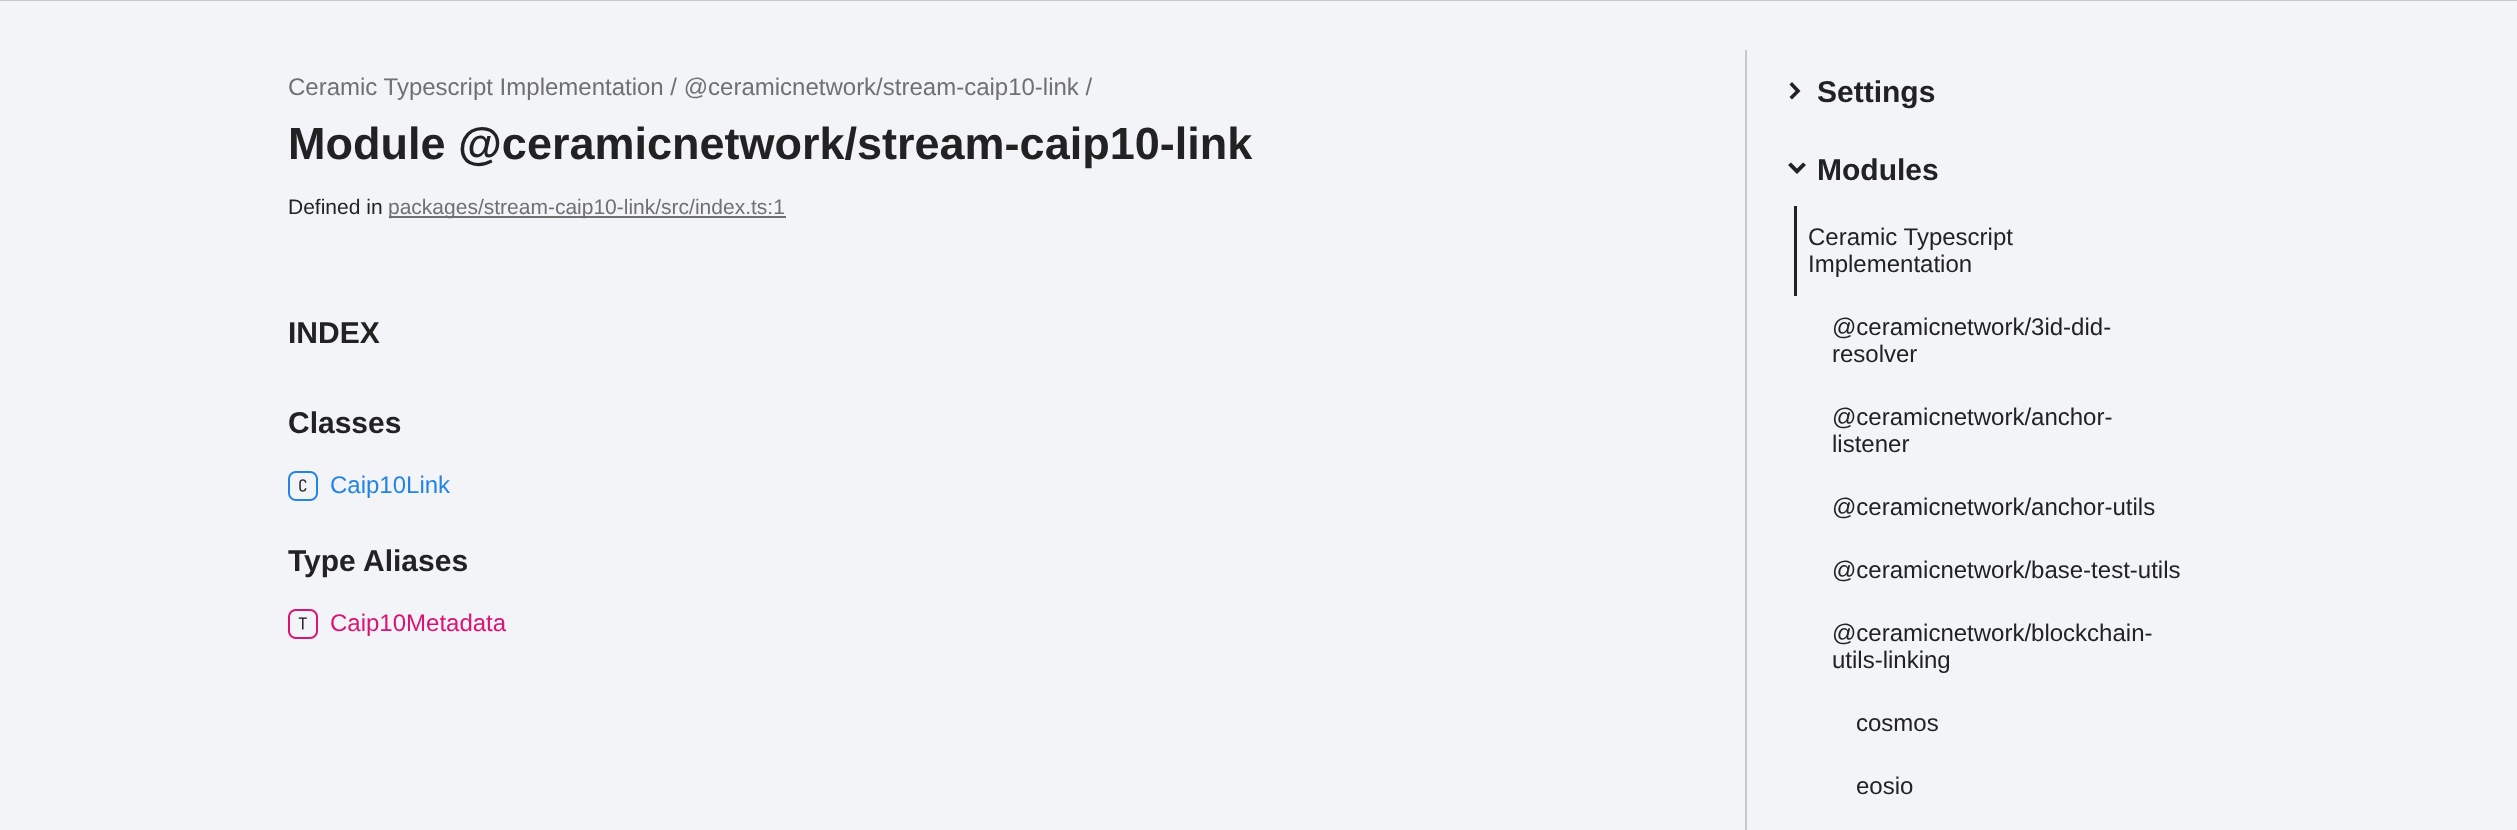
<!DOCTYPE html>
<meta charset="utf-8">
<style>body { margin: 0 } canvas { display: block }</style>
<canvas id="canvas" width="2517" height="830"></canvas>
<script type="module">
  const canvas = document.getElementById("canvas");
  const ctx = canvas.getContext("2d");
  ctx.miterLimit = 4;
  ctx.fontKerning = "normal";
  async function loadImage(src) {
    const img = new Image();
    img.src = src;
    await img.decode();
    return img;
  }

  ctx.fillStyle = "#f2f4f8";
  ctx.fillRect(0, 0, 2517, 830);
  ctx.fillStyle = "#c5c7c9";
  ctx.fillRect(0, 0, 2517, 1);
  ctx.font = "24px Liberation Sans";
  ctx.fillStyle = "#707070";
  ctx.fillText("Ceramic Typescript Implementation / @ceramicnetwork/stream-caip10-link /", 288, 95);
  ctx.font = "bold 45px Liberation Sans";
  ctx.fillStyle = "#222222";
  ctx.fillText("Module @ceramicnetwork/stream-caip10-link", 288, 159);
  ctx.font = "21px Liberation Sans";
  ctx.fillText("Defined in", 288, 214);
  ctx.fillStyle = "#707070";
  ctx.fillRect(389, 216, 397, 2);
  ctx.fillText("packages/stream-caip10-link/src/index.ts:1", 388, 214);
  ctx.font = "bold 30px Liberation Sans";
  ctx.fillStyle = "#222222";
  ctx.fillText("INDEX", 288, 343);
  ctx.fillText("Classes", 288, 433);
  ctx.drawImage(await loadImage("img1.png"), 288, 471, 30, 30);
  ctx.font = "24px Liberation Sans";
  ctx.fillStyle = "#2484e5";
  ctx.fillText("Caip10Link", 330, 493);
  ctx.font = "bold 30px Liberation Sans";
  ctx.fillStyle = "#222222";
  ctx.fillText("Type Aliases", 288, 571);
  ctx.drawImage(await loadImage("img2.png"), 288, 609, 30, 30);
  ctx.font = "24px Liberation Sans";
  ctx.fillStyle = "#db1373";
  ctx.fillText("Caip10Metadata", 330, 631);
  ctx.fillStyle = "#c5c7c9";
  ctx.fillRect(1745, 50, 2, 780);
  ctx.fillStyle = "#222222";
  ctx.beginPath();
  ctx.moveTo(1792, 99.5);
  ctx.lineTo(1800.5, 91);
  ctx.lineTo(1792, 82);
  ctx.lineTo(1789.5, 84.5);
  ctx.lineTo(1795.5, 91);
  ctx.lineTo(1789.5, 97);
  ctx.closePath();
  ctx.fill();
  ctx.font = "bold 30px Liberation Sans";
  ctx.fillText("Settings", 1817, 102);
  ctx.beginPath();
  ctx.moveTo(1788, 165);
  ctx.lineTo(1797, 174);
  ctx.lineTo(1806, 165);
  ctx.lineTo(1803, 162.5);
  ctx.lineTo(1797, 168.5);
  ctx.lineTo(1791, 162.5);
  ctx.closePath();
  ctx.fill();
  ctx.fillText("Modules", 1817, 180);
  ctx.fillRect(1794, 206, 3, 90);
  ctx.font = "24px Liberation Sans";
  ctx.fillText("Ceramic Typescript", 1808, 245);
  ctx.fillText("Implementation", 1808, 272);
  ctx.fillText("@ceramicnetwork/3id-did-", 1832, 335);
  ctx.fillText("resolver", 1832, 362);
  ctx.fillText("@ceramicnetwork/anchor-", 1832, 425);
  ctx.fillText("listener", 1832, 452);
  ctx.fillText("@ceramicnetwork/anchor-utils", 1832, 515);
  ctx.fillText("@ceramicnetwork/base-test-utils", 1832, 578);
  ctx.fillText("@ceramicnetwork/blockchain-", 1832, 641);
  ctx.fillText("utils-linking", 1832, 668);
  ctx.fillText("cosmos", 1856, 731);
  ctx.fillText("eosio", 1856, 794);
</script>
